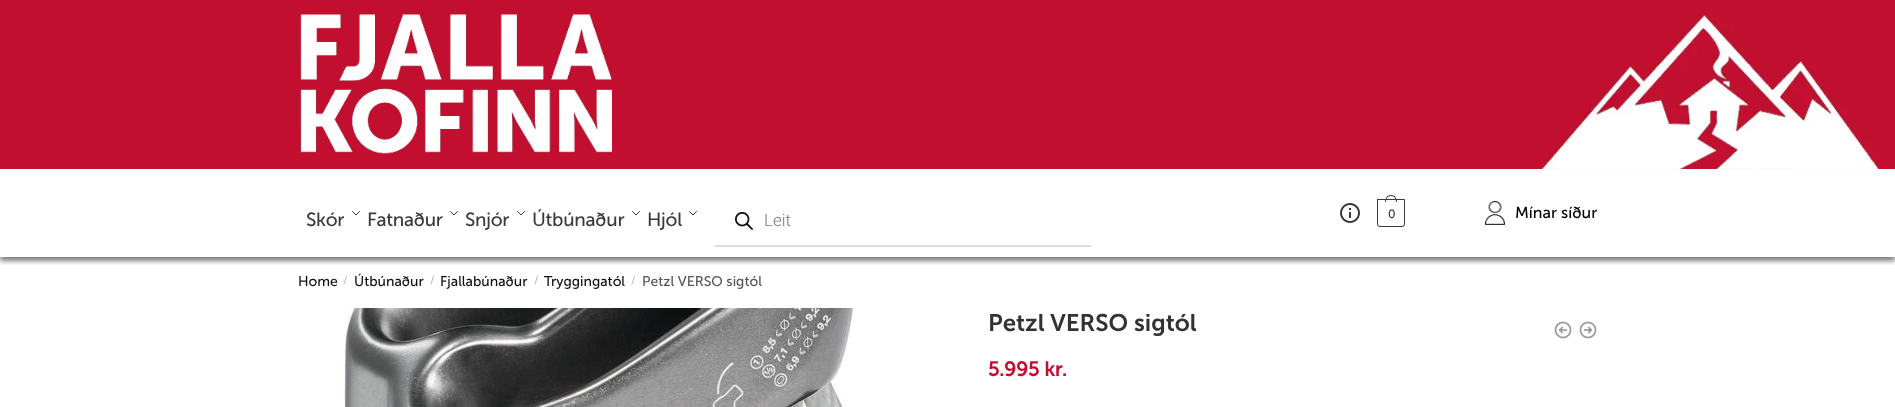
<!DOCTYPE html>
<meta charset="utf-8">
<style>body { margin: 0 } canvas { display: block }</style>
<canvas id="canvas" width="1895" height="407"></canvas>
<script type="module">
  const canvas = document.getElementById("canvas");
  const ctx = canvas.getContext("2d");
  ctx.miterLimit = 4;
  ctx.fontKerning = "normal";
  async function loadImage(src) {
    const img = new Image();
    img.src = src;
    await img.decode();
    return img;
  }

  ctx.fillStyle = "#ffffff";
  ctx.fillRect(0, 0, 1895, 407);
  ctx.fillStyle = "#c20f2f";
  ctx.fillRect(0, 0, 1895, 169);
  ctx.drawImage(await loadImage("img1.png"), 1539, 14, 341, 155);
  ctx.drawImage(await loadImage("img2.png"), 300, 14, 312, 140);
  ctx.save();
  ctx.beginPath();
  ctx.rect(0, 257, 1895, 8);
  ctx.clip();
  ctx.fillStyle = "rgba(0, 0, 0, 0.5)";
  ctx.filter = "blur(2.5px)";
  ctx.beginPath();
  ctx.rect(0, 173, 1895, 88);
  ctx.fill();
  ctx.filter = "none";
  ctx.restore();
  ctx.letterSpacing = "-0.25px";
  ctx.font = "19px Museo Sans";
  ctx.fillStyle = "#3a3a3a";
  ctx.fillText("Skór", 306, 226);
  ctx.beginPath();
  ctx.moveTo(359.5, 211.5);
  ctx.lineTo(356, 215);
  ctx.lineTo(352.5, 211.5);
  ctx.strokeStyle = "#3a3a3a";
  ctx.lineCap = "round";
  ctx.lineJoin = "round";
  ctx.stroke();
  ctx.fillText("Fatnaður", 367, 226);
  ctx.beginPath();
  ctx.moveTo(457.5, 211.5);
  ctx.lineTo(454, 215);
  ctx.lineTo(450.5, 211.5);
  ctx.stroke();
  ctx.fillText("Snjór", 465, 226);
  ctx.beginPath();
  ctx.moveTo(524.5, 211.5);
  ctx.lineTo(521, 215);
  ctx.lineTo(517.5, 211.5);
  ctx.stroke();
  ctx.fillText("Útbúnaður", 532, 226);
  ctx.beginPath();
  ctx.moveTo(639.5, 211.5);
  ctx.lineTo(636, 215);
  ctx.lineTo(632.5, 211.5);
  ctx.stroke();
  ctx.fillText("Hjól", 647, 226);
  ctx.beginPath();
  ctx.moveTo(696.5, 211.5);
  ctx.lineTo(693, 215);
  ctx.lineTo(689.5, 211.5);
  ctx.stroke();
  ctx.drawImage(await loadImage("img3.png"), 735, 212, 18, 18);
  ctx.fillStyle = "#dcdcdc";
  ctx.beginPath();
  ctx.moveTo(1092, 247);
  ctx.lineTo(714, 247);
  ctx.lineTo(716, 245);
  ctx.lineTo(1090, 245);
  ctx.closePath();
  ctx.fill();
  ctx.letterSpacing = "0px";
  ctx.font = "300 17px Roboto";
  ctx.fillStyle = "#777777";
  ctx.fillText("Leit", 764, 226);
  ctx.drawImage(await loadImage("img4.png"), 1340, 203, 20, 20);
  ctx.beginPath();
  ctx.roundRect(1377.5, 199.5, 27, 27, [0, 0, 2.5, 2.5]);
  ctx.lineJoin = "miter";
  ctx.stroke();
  ctx.fillStyle = "#3a3a3a";
  ctx.beginPath();
  ctx.moveTo(1391, 195);
  ctx.bezierCurveTo(1395, 195, 1397, 198.5, 1397, 202);
  ctx.lineTo(1385, 202);
  ctx.bezierCurveTo(1385, 198.5, 1387, 195, 1391, 195);
  ctx.closePath();
  ctx.moveTo(1391, 196);
  ctx.bezierCurveTo(1394.5, 196, 1396, 199, 1396, 202);
  ctx.lineTo(1386, 202);
  ctx.bezierCurveTo(1386, 199, 1387.5, 196, 1391, 196);
  ctx.closePath();
  ctx.fill("evenodd");
  ctx.letterSpacing = "-1px";
  ctx.font = "12px Museo Sans";
  ctx.fillText("0", 1388, 218);
  ctx.drawImage(await loadImage("img5.png"), 1485, 201, 20, 24);
  ctx.letterSpacing = "0px";
  ctx.font = "16px Museo Sans";
  ctx.fillStyle = "#000000";
  ctx.fillText("Mínar síður", 1515, 218);
  ctx.font = "14px Museo Sans";
  ctx.fillStyle = "#111111";
  ctx.fillText("Home", 298, 286);
  ctx.font = "11px Museo Sans";
  ctx.fillStyle = "#bbbbbb";
  ctx.fillText("/", 343, 284);
  ctx.font = "14px Museo Sans";
  ctx.fillStyle = "#111111";
  ctx.fillText("Útbúnaður", 354, 286);
  ctx.font = "11px Museo Sans";
  ctx.fillStyle = "#bbbbbb";
  ctx.fillText("/", 430, 284);
  ctx.font = "14px Museo Sans";
  ctx.fillStyle = "#111111";
  ctx.fillText("Fjallabúnaður", 440, 286);
  ctx.font = "11px Museo Sans";
  ctx.fillStyle = "#bbbbbb";
  ctx.fillText("/", 534, 284);
  ctx.font = "14px Museo Sans";
  ctx.fillStyle = "#111111";
  ctx.fillText("Tryggingatól", 544, 286);
  ctx.font = "11px Museo Sans";
  ctx.fillStyle = "#bbbbbb";
  ctx.fillText("/", 631, 284);
  ctx.font = "14px Museo Sans";
  ctx.fillStyle = "#555555";
  ctx.fillText("Petzl VERSO sigtól", 642, 286);
  ctx.drawImage(await loadImage("img6.png"), 340, 308, 517, 99);
  ctx.font = "600 24px Museo Sans";
  ctx.fillStyle = "#333333";
  ctx.fillText("Petzl VERSO sigtól", 988, 331);
  ctx.drawImage(await loadImage("img7.png"), 1554, 321, 18, 18);
  ctx.drawImage(await loadImage("img8.png"), 1579, 321, 18, 18);
  ctx.font = "bold 20px Museo Sans";
  ctx.fillStyle = "#c20f2f";
  ctx.fillText("5.995 kr.", 988, 376);
</script>
